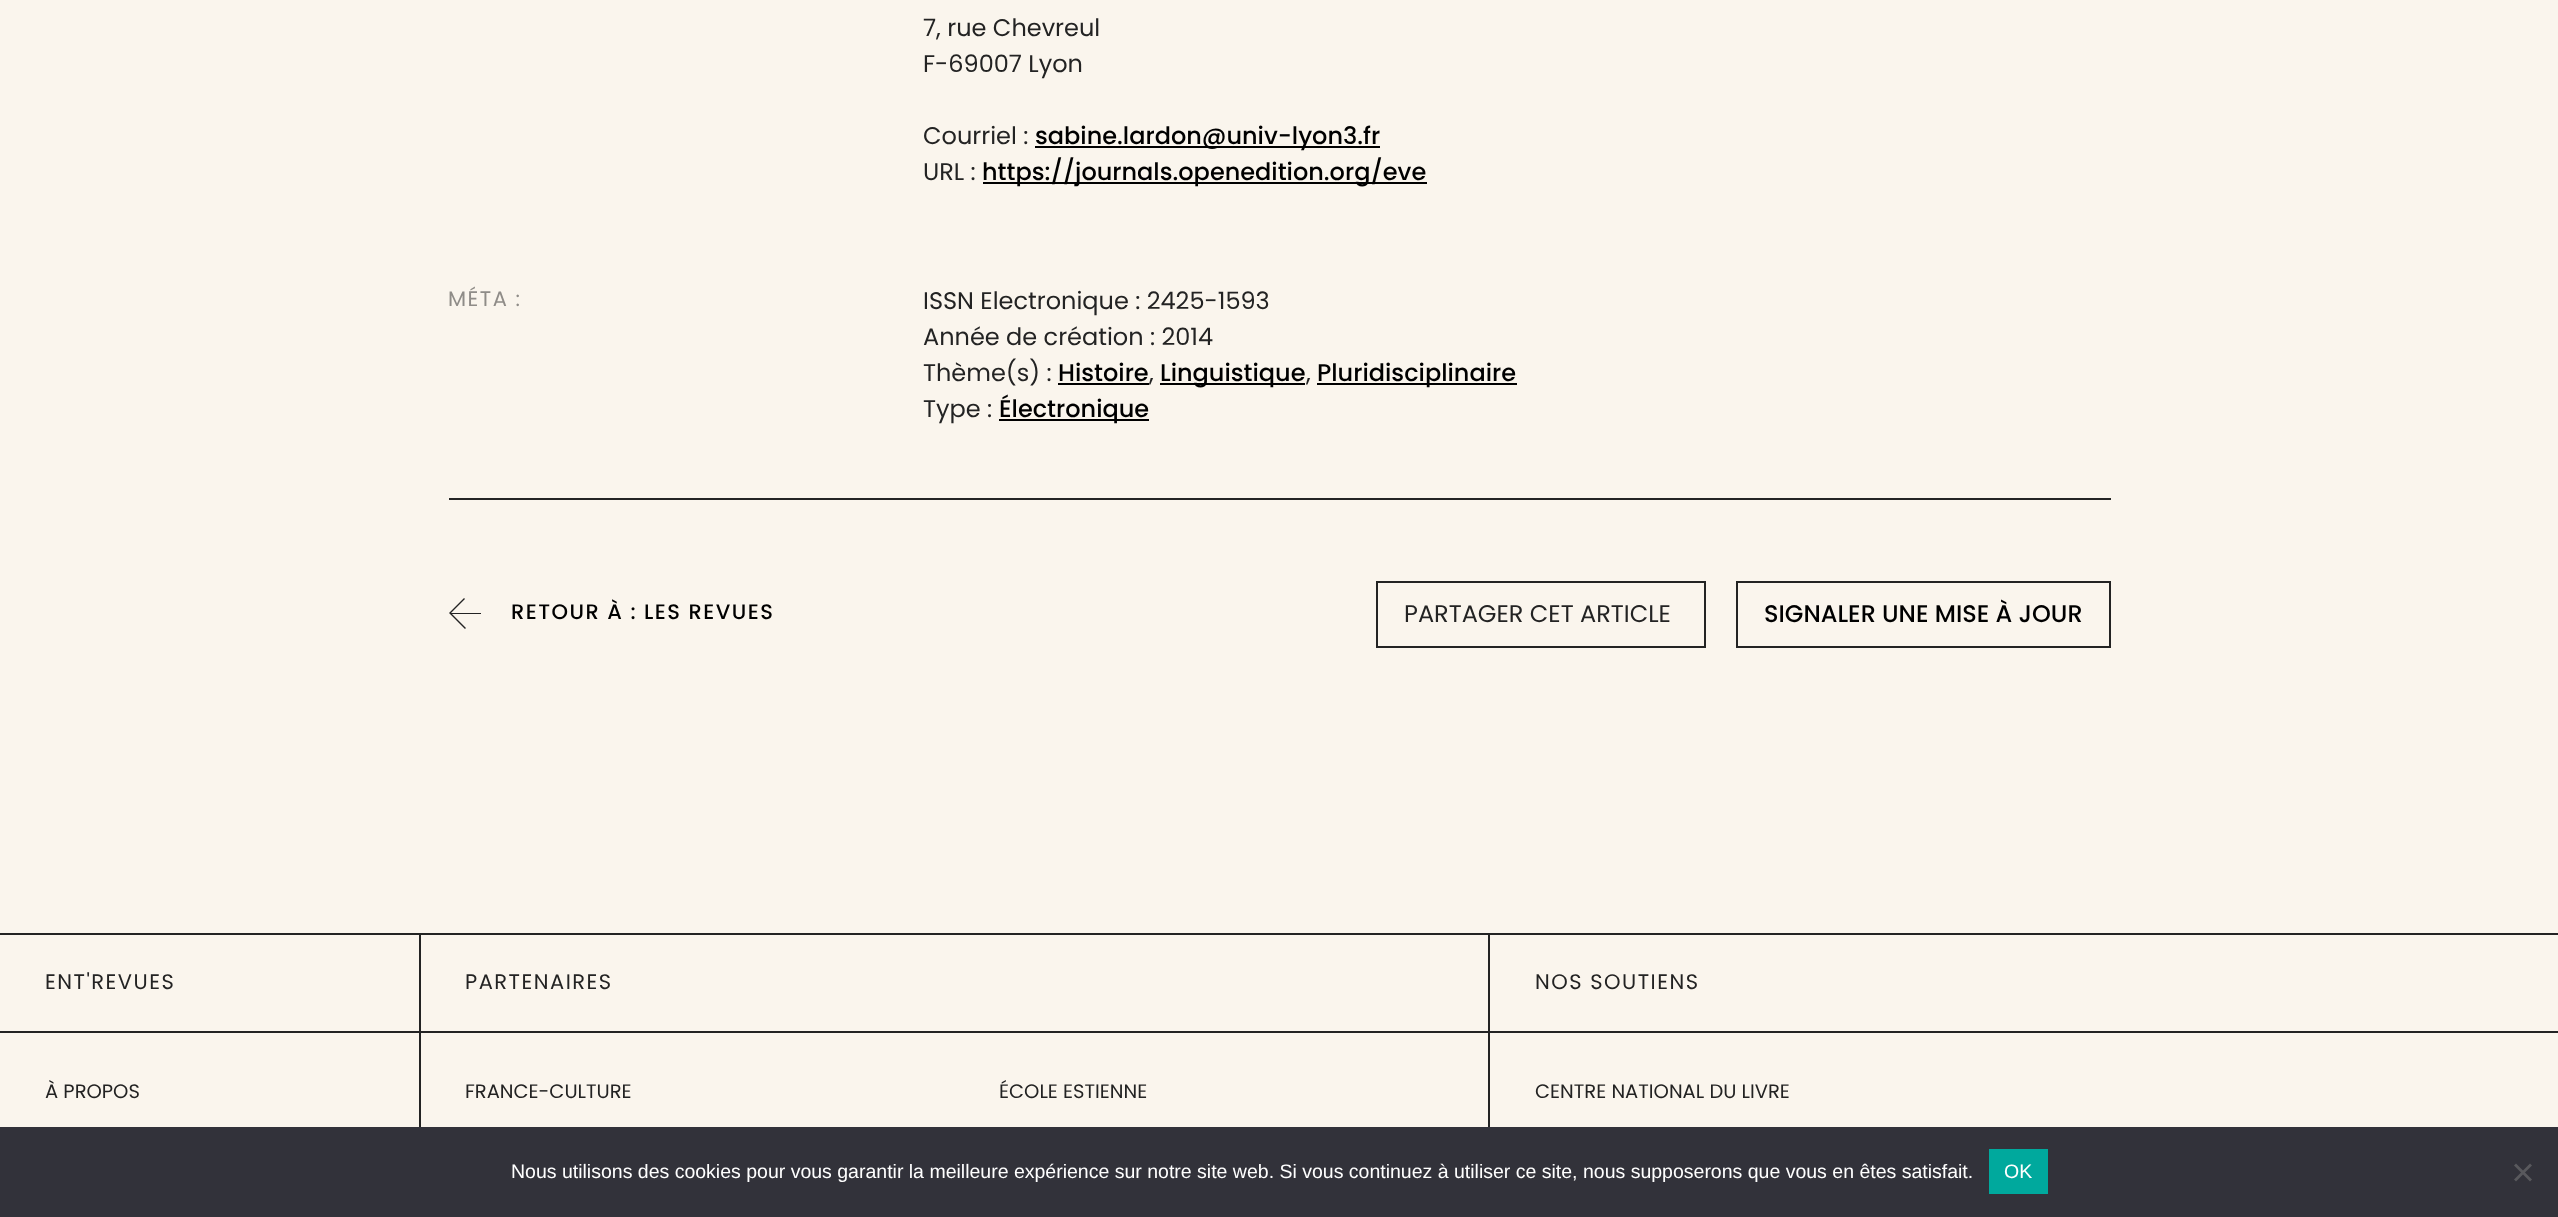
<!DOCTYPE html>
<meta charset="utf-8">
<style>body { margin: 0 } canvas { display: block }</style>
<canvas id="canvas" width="2558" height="1217"></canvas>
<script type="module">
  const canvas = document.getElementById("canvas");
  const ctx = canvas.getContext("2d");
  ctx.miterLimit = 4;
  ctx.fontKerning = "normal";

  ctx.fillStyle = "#faf5ed";
  ctx.fillRect(0, 0, 2558, 1217);
  ctx.font = "24px Poppins";
  ctx.fillStyle = "#232323";
  ctx.fillText("7, rue Chevreul", 923, 36);
  ctx.fillText("F-69007 Lyon", 923, 72);
  ctx.fillText("Courriel :", 923, 144);
  ctx.fillStyle = "#000000";
  ctx.fillRect(1035, 146, 345, 2);
  ctx.font = "500 24px Poppins";
  ctx.fillText("sabine.lardon@univ-lyon3.fr", 1035, 144);
  ctx.font = "24px Poppins";
  ctx.fillStyle = "#232323";
  ctx.fillText("URL :", 923, 180);
  ctx.fillStyle = "#000000";
  ctx.fillRect(983, 182, 444, 2);
  ctx.font = "500 24px Poppins";
  ctx.fillText("https://journals.openedition.org/eve", 982, 180);
  ctx.letterSpacing = "1.5px";
  ctx.font = "21px Poppins";
  ctx.fillStyle = "#8f8c88";
  ctx.fillText("MÉTA :", 448, 306);
  ctx.letterSpacing = "0px";
  ctx.font = "24px Poppins";
  ctx.fillStyle = "#232323";
  ctx.fillText("ISSN Electronique : 2425-1593", 923, 309);
  ctx.fillText("Année de création : 2014", 923, 345);
  ctx.fillText("Thème(s) :", 923, 381);
  ctx.font = "500 24px Poppins";
  ctx.fillStyle = "#000000";
  ctx.fillText("Histoire", 1058, 381);
  ctx.fillRect(1058, 383, 91, 2);
  ctx.font = "24px Poppins";
  ctx.fillStyle = "#232323";
  ctx.fillText(",", 1149, 381);
  ctx.fillStyle = "#000000";
  ctx.fillRect(1160, 383, 145, 2);
  ctx.font = "500 24px Poppins";
  ctx.fillText("Linguistique", 1160, 381);
  ctx.font = "24px Poppins";
  ctx.fillStyle = "#232323";
  ctx.fillText(",", 1306, 381);
  ctx.fillStyle = "#000000";
  ctx.fillRect(1317, 383, 200, 2);
  ctx.font = "500 24px Poppins";
  ctx.fillText("Pluridisciplinaire", 1317, 381);
  ctx.font = "24px Poppins";
  ctx.fillStyle = "#232323";
  ctx.fillText("Type :", 923, 417);
  ctx.fillStyle = "#000000";
  ctx.fillRect(999, 419, 150, 2);
  ctx.font = "500 24px Poppins";
  ctx.fillText("Électronique", 999, 417);
  ctx.fillStyle = "#242424";
  ctx.fillRect(449, 498, 1662, 2);
  ctx.fillStyle = "#232323";
  ctx.fillRect(450, 613, 31, 1);
  ctx.beginPath();
  ctx.moveTo(465.5, 628.5);
  ctx.lineTo(450, 613);
  ctx.lineTo(464.5, 598.5);
  ctx.strokeStyle = "#232323";
  ctx.lineWidth = 1.4;
  ctx.stroke();
  ctx.letterSpacing = "1.5px";
  ctx.font = "500 21px Poppins";
  ctx.fillStyle = "#000000";
  ctx.fillText("RETOUR À : LES REVUES", 511, 619);
  ctx.lineWidth = 2;
  ctx.strokeRect(1377, 582, 328, 65);
  ctx.letterSpacing = "0px";
  ctx.font = "24px Poppins";
  ctx.fillStyle = "#232323";
  ctx.fillText("PARTAGER CET ARTICLE", 1404, 622);
  ctx.strokeRect(1737, 582, 373, 65);
  ctx.font = "500 24px Poppins";
  ctx.fillStyle = "#000000";
  ctx.fillText("SIGNALER UNE MISE À JOUR", 1764, 622);
  ctx.fillStyle = "#232323";
  ctx.fillRect(0, 933, 2558, 2);
  ctx.fillRect(419, 935, 2, 192);
  ctx.fillRect(0, 1031, 419, 2);
  ctx.letterSpacing = "1.5px";
  ctx.font = "21px Poppins";
  ctx.fillText("ENT'REVUES", 45, 989);
  ctx.letterSpacing = "0px";
  ctx.font = "19.5px Poppins";
  ctx.fillText("À PROPOS", 45, 1098);
  ctx.fillRect(1488, 935, 2, 192);
  ctx.fillRect(420, 1031, 1068, 2);
  ctx.letterSpacing = "1.5px";
  ctx.font = "21px Poppins";
  ctx.fillText("PARTENAIRES", 465, 989);
  ctx.letterSpacing = "0px";
  ctx.font = "19.5px Poppins";
  ctx.fillText("FRANCE-CULTURE", 465, 1098);
  ctx.fillText("ÉCOLE ESTIENNE", 999, 1098);
  ctx.fillRect(1490, 1031, 1068, 2);
  ctx.letterSpacing = "1.5px";
  ctx.font = "21px Poppins";
  ctx.fillText("NOS SOUTIENS", 1535, 989);
  ctx.letterSpacing = "0px";
  ctx.font = "19.5px Poppins";
  ctx.fillText("CENTRE NATIONAL DU LIVRE", 1535, 1098);
  ctx.fillStyle = "#32323a";
  ctx.fillRect(0, 1127, 2558, 90);
  ctx.font = "19.5px Liberation Sans";
  ctx.fillStyle = "#ffffff";
  ctx.fillText("Nous utilisons des cookies pour vous garantir la meilleure expérience sur notre site web. Si vous continuez à utiliser ce site, nous supposerons que vous en êtes satisfait.", 511, 1178);
  ctx.fillStyle = "#00a99d";
  ctx.fillRect(1989, 1149, 59, 45);
  ctx.fillStyle = "#ffffff";
  ctx.fillText("OK", 2004, 1178);
  ctx.fillStyle = "#59595d";
  ctx.beginPath();
  ctx.moveTo(2530, 1163.5);
  ctx.lineTo(2532, 1165.5);
  ctx.lineTo(2516, 1181.5);
  ctx.lineTo(2514, 1179.5);
  ctx.closePath();
  ctx.fill();
  ctx.beginPath();
  ctx.moveTo(2514, 1165.5);
  ctx.lineTo(2516, 1163.5);
  ctx.lineTo(2532, 1179.5);
  ctx.lineTo(2530, 1181.5);
  ctx.closePath();
  ctx.fill();
</script>
